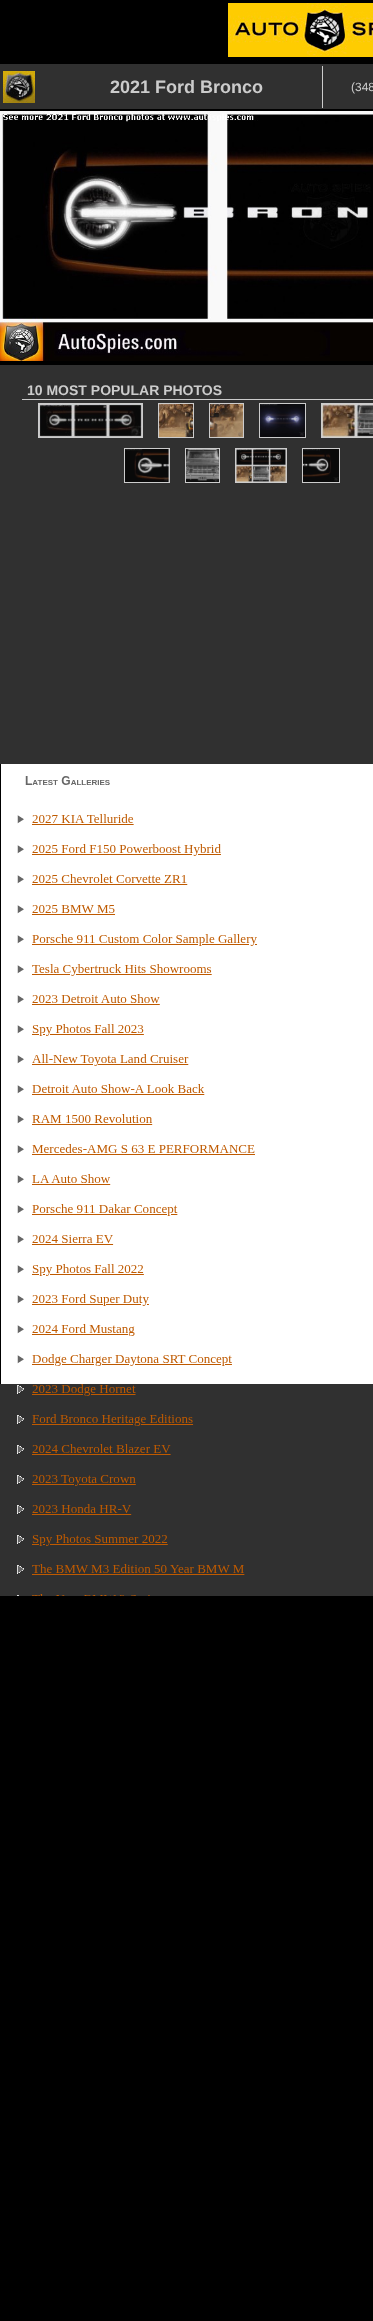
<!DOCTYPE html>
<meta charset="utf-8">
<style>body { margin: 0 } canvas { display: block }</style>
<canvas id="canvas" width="373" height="2321"></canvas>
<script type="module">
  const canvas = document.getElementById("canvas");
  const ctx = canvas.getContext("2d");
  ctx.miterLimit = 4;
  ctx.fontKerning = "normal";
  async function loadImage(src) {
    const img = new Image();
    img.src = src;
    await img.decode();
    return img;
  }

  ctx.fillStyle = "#000000";
  ctx.fillRect(0, 0, 373, 2321);
  ctx.drawImage(await loadImage("img1.png"), 228, 3, 145, 54);
  ctx.fillStyle = "#303030";
  ctx.fillRect(0, 64, 373, 45);
  ctx.drawImage(await loadImage("img2.png"), 3, 71, 32, 32);
  ctx.fillStyle = "#cccccc";
  ctx.fillRect(322, 66, 1, 42);
  ctx.font = "bold 18px Liberation Sans";
  ctx.fillText("2021 Ford Bronco", 110, 93);
  ctx.font = "12px Liberation Sans";
  ctx.fillText("(348", 351, 91);
  ctx.drawImage(await loadImage("img3.png"), 0, 111, 373, 250);
  ctx.fillStyle = "#303030";
  ctx.fillRect(0, 365, 373, 391);
  ctx.fillStyle = "#cccccc";
  ctx.fillRect(22, 399, 351, 1);
  ctx.font = "bold 14px Liberation Sans";
  ctx.fillText("10 MOST POPULAR PHOTOS", 27, 395);
  ctx.strokeStyle = "#cccccc";
  ctx.strokeRect(38.5, 403.5, 104, 34);
  ctx.strokeRect(158.5, 403.5, 35, 34);
  ctx.strokeRect(209.5, 403.5, 34, 34);
  ctx.strokeRect(259.5, 403.5, 46, 34);
  ctx.strokeRect(321.5, 403.5, 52, 34);
  ctx.drawImage(await loadImage("img4.png"), 39, 404, 103, 33);
  ctx.drawImage(await loadImage("img5.png"), 159, 404, 34, 33);
  ctx.drawImage(await loadImage("img6.png"), 210, 404, 33, 33);
  ctx.drawImage(await loadImage("img7.png"), 260, 404, 45, 33);
  ctx.drawImage(await loadImage("img8.png"), 322, 404, 51, 33);
  ctx.strokeRect(124.5, 448.5, 45, 34);
  ctx.strokeRect(185.5, 448.5, 34, 34);
  ctx.strokeRect(235.5, 448.5, 51, 34);
  ctx.strokeRect(302.5, 448.5, 37, 34);
  ctx.drawImage(await loadImage("img9.png"), 125, 449, 44, 33);
  ctx.drawImage(await loadImage("img10.png"), 186, 449, 33, 33);
  ctx.drawImage(await loadImage("img11.png"), 236, 449, 50, 33);
  ctx.drawImage(await loadImage("img12.png"), 303, 449, 36, 33);
  ctx.drawImage(await loadImage("img13.png"), 0, 756, 373, 840);
</script>
